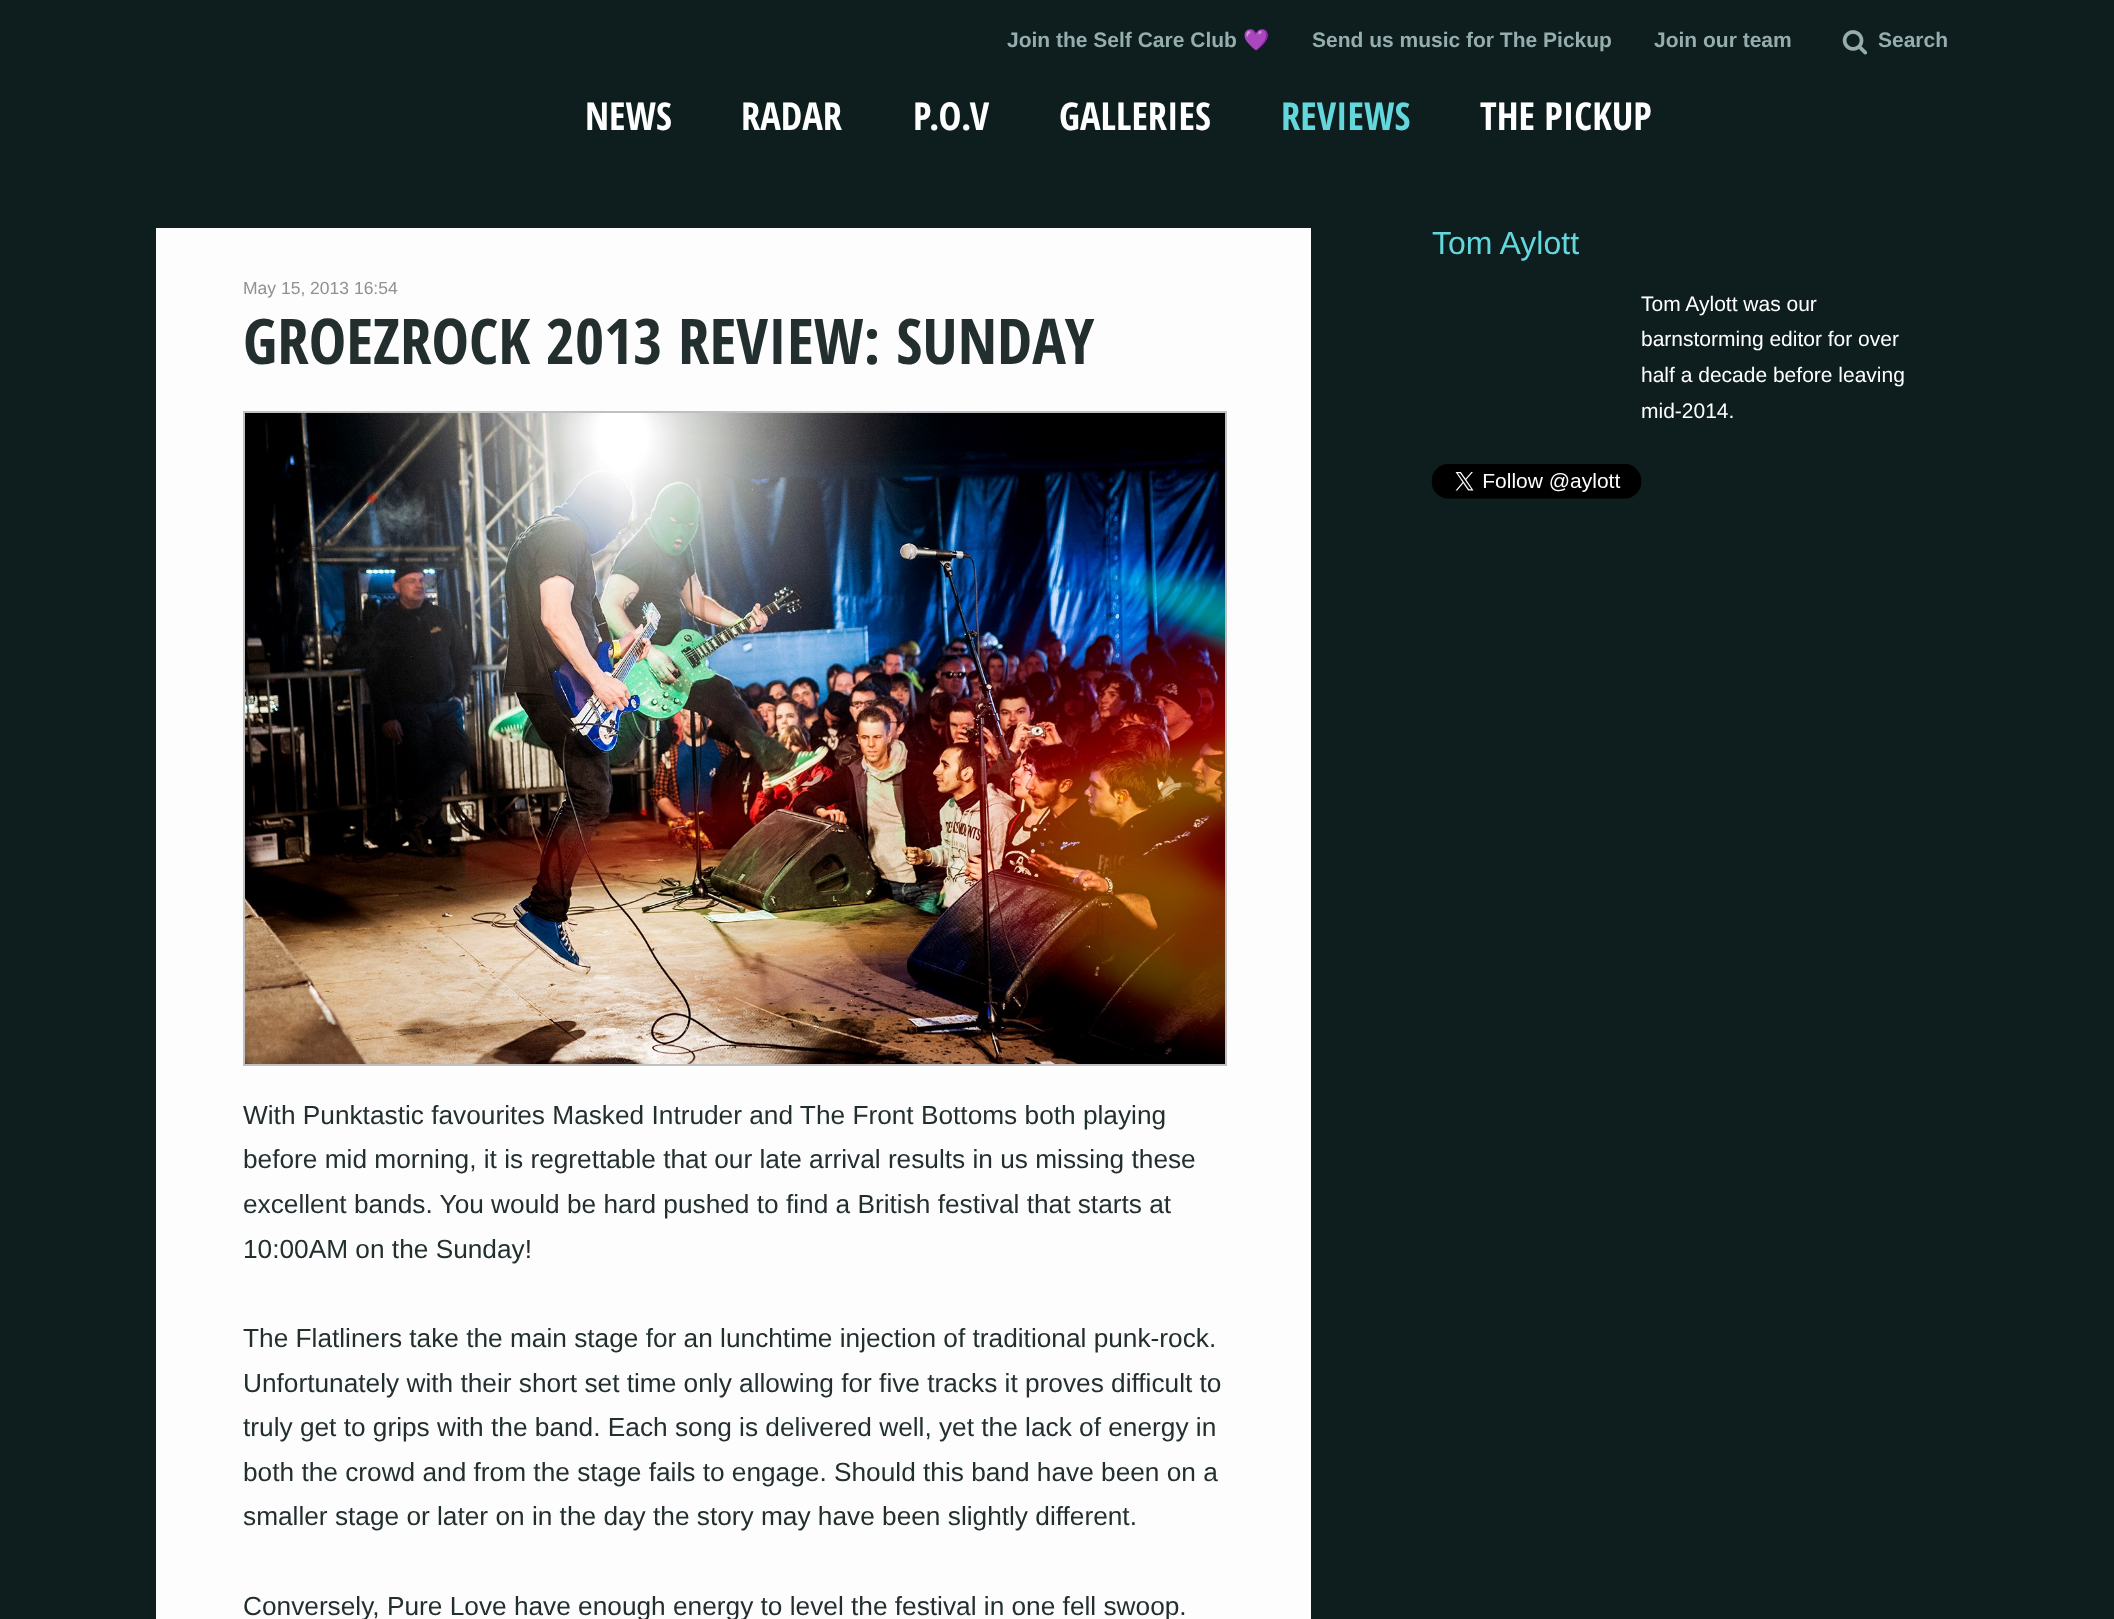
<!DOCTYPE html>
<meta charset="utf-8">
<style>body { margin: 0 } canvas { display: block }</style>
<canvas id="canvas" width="2114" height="1619"></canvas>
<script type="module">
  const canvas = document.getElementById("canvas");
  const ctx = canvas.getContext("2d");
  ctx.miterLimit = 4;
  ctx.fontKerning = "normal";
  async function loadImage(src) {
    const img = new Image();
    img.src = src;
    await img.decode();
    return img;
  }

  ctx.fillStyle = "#0e1e1f";
  ctx.fillRect(0, 0, 2114, 1619);
  ctx.font = "bold 21px Liberation Sans";
  ctx.fillStyle = "#96adae";
  ctx.fillText("Join the Self Care Club", 1007, 47);
  ctx.font = "bold 21px Noto Color Emoji";
  ctx.fillText("💜", 1243, 47);
  ctx.font = "bold 21px Liberation Sans";
  ctx.fillText("Send us music for The Pickup", 1312, 47);
  ctx.fillText("Join our team", 1654, 47);
  ctx.drawImage(await loadImage("img1.png"), 1842, 30, 26, 25);
  ctx.fillText("Search", 1878, 47);
  ctx.font = "bold 38.5px Open Sans Condensed";
  ctx.fillStyle = "#ffffff";
  ctx.fillText("NEWS", 585, 130);
  ctx.fillText("RADAR", 741, 130);
  ctx.fillText("P.O.V", 913, 130);
  ctx.fillText("GALLERIES", 1059, 130);
  ctx.fillStyle = "#63d7db";
  ctx.fillText("REVIEWS", 1281, 130);
  ctx.fillStyle = "#ffffff";
  ctx.fillText("THE PICKUP", 1480, 130);
  ctx.fillStyle = "#fdfdfd";
  ctx.fillRect(156, 228, 1155, 1391);
  ctx.font = "17.5px Liberation Sans";
  ctx.fillStyle = "#909090";
  ctx.fillText("May 15, 2013 16:54", 243, 294);
  ctx.font = "bold 63px Open Sans Condensed";
  ctx.fillStyle = "#232f2f";
  ctx.fillText("GROEZROCK 2013 REVIEW: SUNDAY", 243, 364);
  ctx.strokeStyle = "#c0c0c0";
  ctx.lineWidth = 2;
  ctx.strokeRect(244, 412, 982, 653);
  ctx.drawImage(await loadImage("img2.png"), 245, 413, 980, 651);
  ctx.font = "26.25px Liberation Sans";
  ctx.fillText("With Punktastic favourites Masked Intruder and The Front Bottoms both playing", 243, 1124);
  ctx.fillText("before mid morning, it is regrettable that our late arrival results in us missing these", 243, 1168);
  ctx.fillText("excellent bands. You would be hard pushed to find a British festival that starts at", 243, 1213);
  ctx.fillText("10:00AM on the Sunday!", 243, 1258);
  ctx.fillText("The Flatliners take the main stage for an lunchtime injection of traditional punk-rock.", 243, 1347);
  ctx.fillText("Unfortunately with their short set time only allowing for five tracks it proves difficult to", 243, 1392);
  ctx.fillText("truly get to grips with the band. Each song is delivered well, yet the lack of energy in", 243, 1436);
  ctx.fillText("both the crowd and from the stage fails to engage. Should this band have been on a", 243, 1481);
  ctx.fillText("smaller stage or later on in the day the story may have been slightly different.", 243, 1525);
  ctx.fillText("Conversely, Pure Love have enough energy to level the festival in one fell swoop.", 243, 1615);
  ctx.font = "32px Liberation Sans";
  ctx.fillStyle = "#63d7db";
  ctx.fillText("Tom Aylott", 1432, 254);
  ctx.font = "21px Liberation Sans";
  ctx.fillStyle = "#ffffff";
  ctx.fillText("Tom Aylott was our", 1641, 311);
  ctx.fillText("barnstorming editor for over", 1641, 346);
  ctx.fillText("half a decade before leaving", 1641, 382);
  ctx.fillText("mid-2014.", 1641, 418);
  ctx.drawImage(await loadImage("img3.png"), 1431, 464, 211, 35);
</script>
